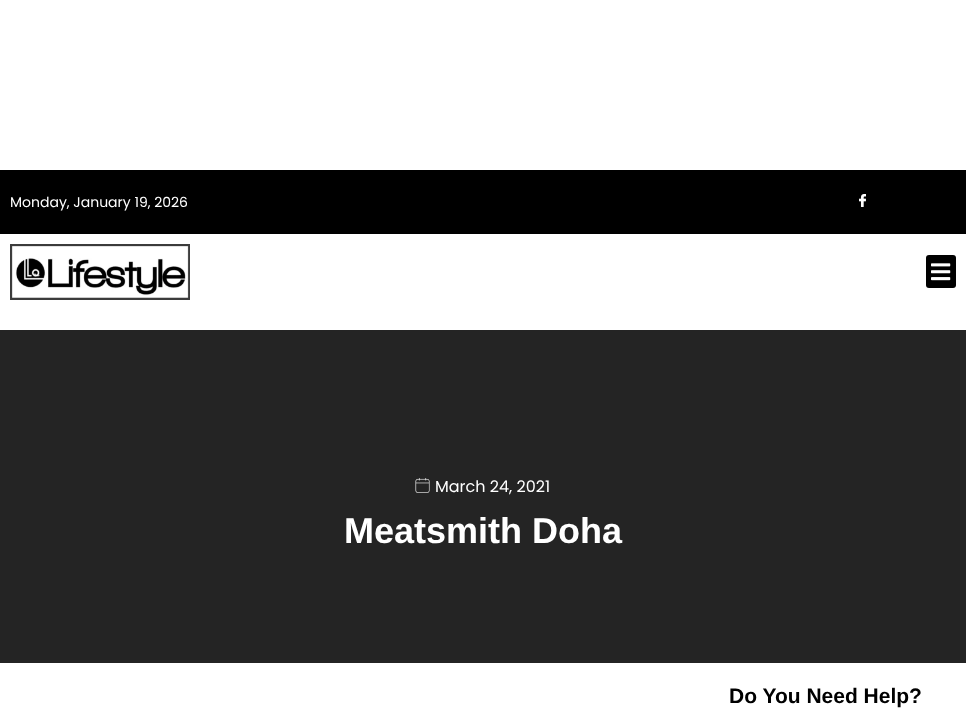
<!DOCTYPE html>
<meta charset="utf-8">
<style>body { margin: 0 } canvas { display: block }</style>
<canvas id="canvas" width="966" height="723"></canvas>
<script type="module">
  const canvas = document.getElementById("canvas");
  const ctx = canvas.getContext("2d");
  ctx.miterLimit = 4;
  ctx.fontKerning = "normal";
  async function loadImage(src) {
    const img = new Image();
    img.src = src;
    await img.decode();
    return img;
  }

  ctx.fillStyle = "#ffffff";
  ctx.fillRect(0, 0, 966, 723);
  ctx.fillStyle = "#000000";
  ctx.fillRect(0, 170, 966, 64);
  ctx.font = "14px Poppins";
  ctx.fillStyle = "#ffffff";
  ctx.fillText("Monday, January 19, 2026", 10, 207);
  ctx.drawImage(await loadImage("img1.png"), 859, 194, 7, 13);
  ctx.drawImage(await loadImage("img2.png"), 10, 244, 180, 56);
  ctx.fillStyle = "#000000";
  ctx.beginPath();
  ctx.roundRect(926, 255, 30, 33, 3);
  ctx.fill();
  ctx.drawImage(await loadImage("img3.png"), 931, 263, 20, 18);
  ctx.fillStyle = "#242424";
  ctx.fillRect(0, 330, 966, 333);
  ctx.drawImage(await loadImage("img4.png"), 415, 478, 15, 15);
  ctx.font = "16px Poppins";
  ctx.fillStyle = "#ffffff";
  ctx.fillText("March 24, 2021", 435, 492);
  ctx.font = "bold 36px Liberation Sans";
  ctx.fillText("Meatsmith Doha", 344, 543);
  ctx.font = "bold 21px Liberation Sans";
  ctx.fillStyle = "#000000";
  ctx.fillText("Do You Need Help?", 729, 703);
</script>
